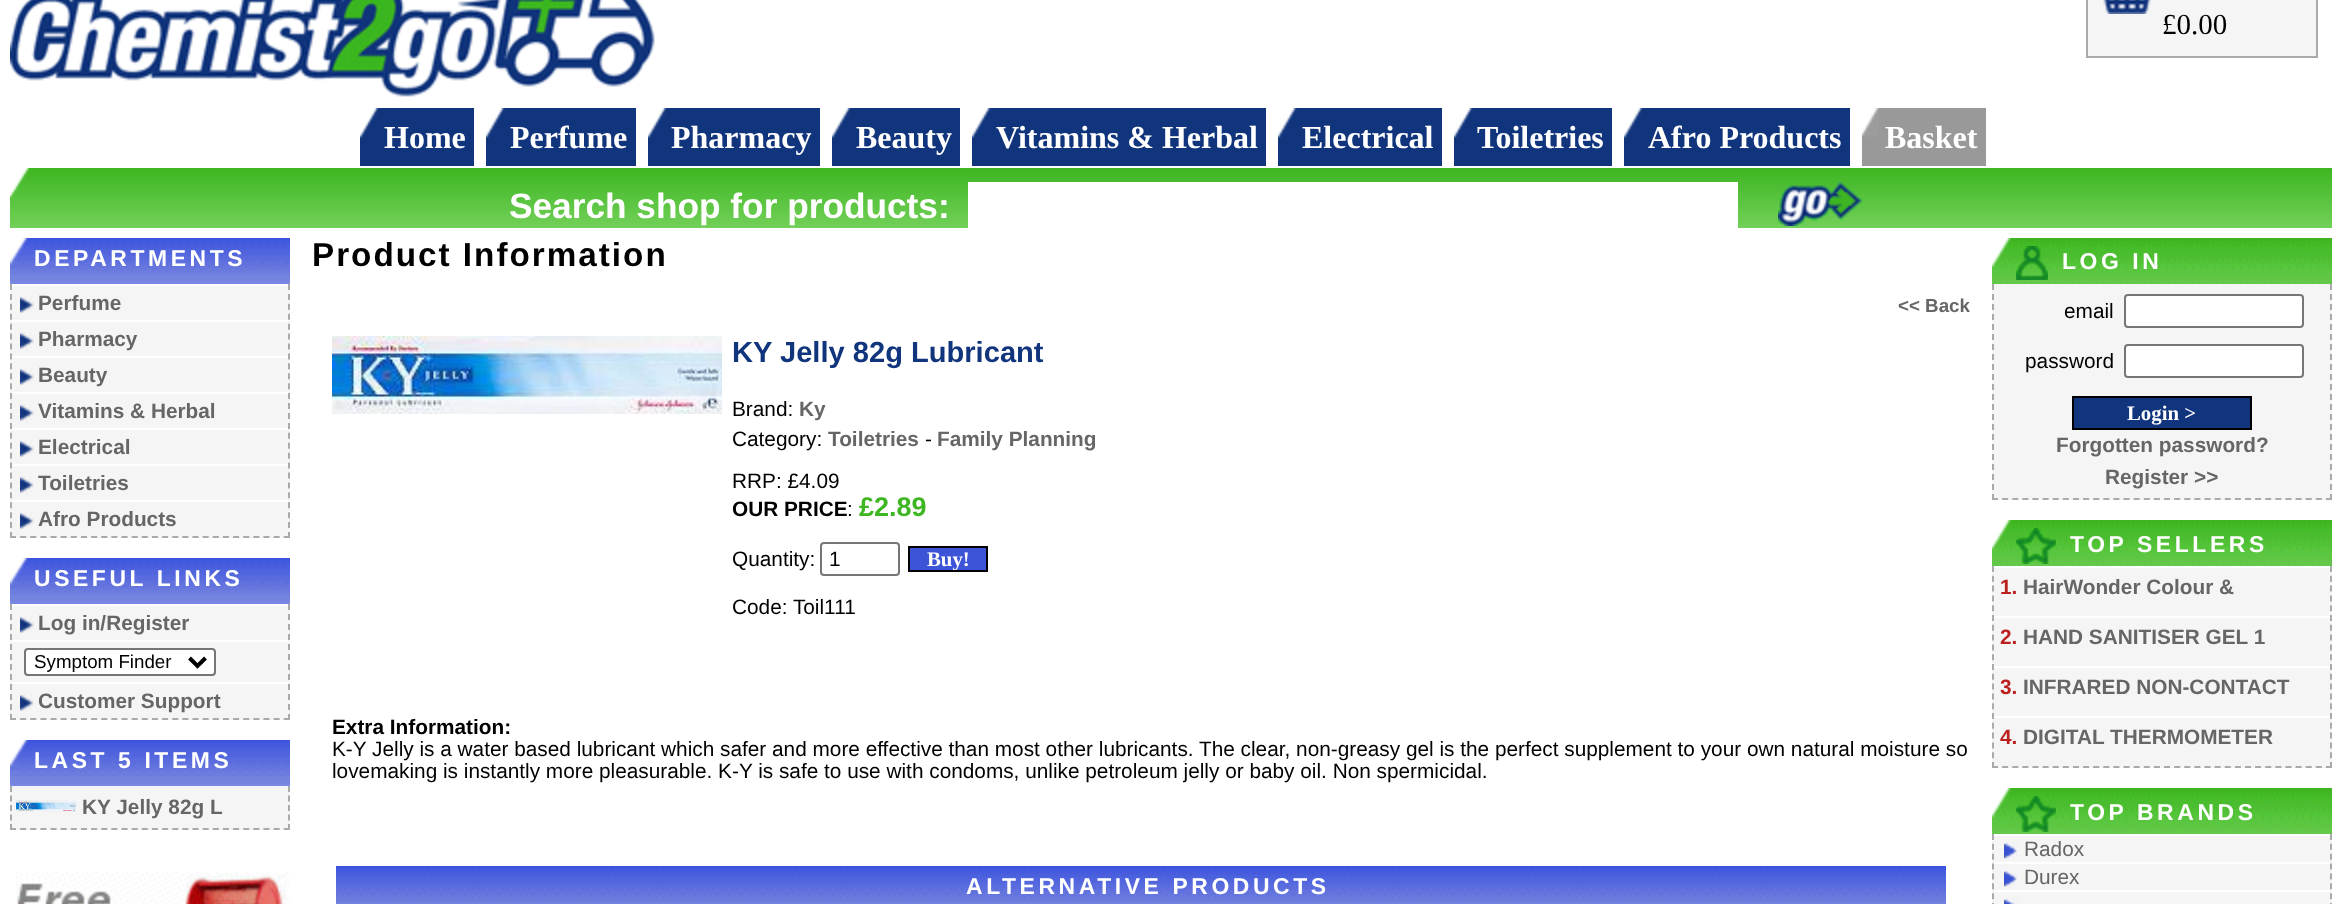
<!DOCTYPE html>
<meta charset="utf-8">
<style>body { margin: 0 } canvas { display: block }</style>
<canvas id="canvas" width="2342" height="904"></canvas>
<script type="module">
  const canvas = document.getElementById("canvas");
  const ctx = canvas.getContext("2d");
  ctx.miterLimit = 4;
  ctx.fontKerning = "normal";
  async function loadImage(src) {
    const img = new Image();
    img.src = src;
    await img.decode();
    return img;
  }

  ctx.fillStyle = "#ffffff";
  ctx.fillRect(0, 0, 2342, 904);
  ctx.drawImage(await loadImage("img1.png"), 10, 0, 645, 97);
  ctx.fillStyle = "#f5f5f5";
  ctx.beginPath();
  ctx.rect(2087, -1, 230, 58);
  ctx.fill();
  ctx.strokeStyle = "#aaaaaa";
  ctx.lineWidth = 2;
  ctx.stroke();
  ctx.drawImage(await loadImage("img2.png"), 2103, 0, 48, 14);
  ctx.font = "29px Liberation Serif";
  ctx.fillStyle = "#000000";
  ctx.fillText("£0.00", 2162, 34);
  ctx.fillStyle = "#11357c";
  ctx.fillRect(360, 108, 114, 58);
  ctx.drawImage(await loadImage("img3.png"), 360, 108, 19, 30);
  ctx.font = "bold 32px Liberation Serif";
  ctx.fillStyle = "#ffffff";
  ctx.fillText("Home", 384, 148);
  ctx.fillStyle = "#11357c";
  ctx.fillRect(486, 108, 150, 58);
  ctx.drawImage(await loadImage("img3.png"), 486, 108, 19, 30);
  ctx.fillStyle = "#ffffff";
  ctx.fillText("Perfume", 510, 148);
  ctx.fillStyle = "#11357c";
  ctx.fillRect(648, 108, 172, 58);
  ctx.drawImage(await loadImage("img3.png"), 648, 108, 19, 30);
  ctx.fillStyle = "#ffffff";
  ctx.fillText("Pharmacy", 671, 148);
  ctx.fillStyle = "#11357c";
  ctx.fillRect(832, 108, 128, 58);
  ctx.drawImage(await loadImage("img3.png"), 832, 108, 19, 30);
  ctx.fillStyle = "#ffffff";
  ctx.fillText("Beauty", 856, 148);
  ctx.fillStyle = "#11357c";
  ctx.fillRect(972, 108, 294, 58);
  ctx.drawImage(await loadImage("img3.png"), 972, 108, 19, 30);
  ctx.fillStyle = "#ffffff";
  ctx.fillText("Vitamins & Herbal", 996, 148);
  ctx.fillStyle = "#11357c";
  ctx.fillRect(1278, 108, 164, 58);
  ctx.drawImage(await loadImage("img3.png"), 1278, 108, 19, 30);
  ctx.fillStyle = "#ffffff";
  ctx.fillText("Electrical", 1302, 148);
  ctx.fillStyle = "#11357c";
  ctx.fillRect(1454, 108, 158, 58);
  ctx.drawImage(await loadImage("img3.png"), 1454, 108, 19, 30);
  ctx.fillStyle = "#ffffff";
  ctx.fillText("Toiletries", 1477, 148);
  ctx.fillStyle = "#11357c";
  ctx.fillRect(1624, 108, 226, 58);
  ctx.drawImage(await loadImage("img3.png"), 1624, 108, 19, 30);
  ctx.fillStyle = "#ffffff";
  ctx.fillText("Afro Products", 1648, 148);
  ctx.fillStyle = "#999999";
  ctx.fillRect(1862, 108, 124, 58);
  ctx.drawImage(await loadImage("img4.png"), 1862, 108, 17, 29);
  ctx.fillStyle = "#ffffff";
  ctx.fillText("Basket", 1885, 148);
  ctx.drawImage(await loadImage("img5.png"), 10, 168, 2322, 60);
  ctx.drawImage(await loadImage("img6.png"), 10, 168, 20, 30);
  ctx.font = "bold 35.25px Liberation Sans";
  ctx.fillText("Search shop for products:", 509, 218);
  ctx.fillRect(968, 182, 770, 46);
  ctx.drawImage(await loadImage("img7.png"), 1778, 182, 84, 44);
  ctx.drawImage(await loadImage("img8.png"), 10, 238, 280, 46);
  ctx.letterSpacing = "3.6px";
  ctx.font = "bold 22.9px Liberation Sans";
  ctx.fillText("DEPARTMENTS", 34, 266);
  ctx.fillStyle = "#f5f5f5";
  ctx.fillRect(10, 286, 280, 252);
  ctx.beginPath();
  ctx.moveTo(289, 284);
  ctx.lineTo(289, 538);
  ctx.setLineDash([6, 3.92]);
  ctx.stroke();
  ctx.beginPath();
  ctx.moveTo(10, 537);
  ctx.lineTo(290, 537);
  ctx.setLineDash([6, 4.14]);
  ctx.stroke();
  ctx.beginPath();
  ctx.moveTo(11, 284);
  ctx.lineTo(11, 538);
  ctx.setLineDash([6, 3.92]);
  ctx.stroke();
  ctx.drawImage(await loadImage("img9.png"), 20, 296, 14, 18);
  ctx.letterSpacing = "0px";
  ctx.font = "bold 20.8px Liberation Sans";
  ctx.fillStyle = "#666666";
  ctx.fillText("Perfume", 38, 310);
  ctx.fillStyle = "#ffffff";
  ctx.fillRect(12, 320, 276, 2);
  ctx.drawImage(await loadImage("img9.png"), 20, 332, 14, 18);
  ctx.fillStyle = "#666666";
  ctx.fillText("Pharmacy", 38, 346);
  ctx.fillStyle = "#ffffff";
  ctx.fillRect(12, 356, 276, 2);
  ctx.drawImage(await loadImage("img9.png"), 20, 368, 14, 18);
  ctx.fillStyle = "#666666";
  ctx.fillText("Beauty", 38, 382);
  ctx.fillStyle = "#ffffff";
  ctx.fillRect(12, 392, 276, 2);
  ctx.drawImage(await loadImage("img9.png"), 20, 404, 14, 18);
  ctx.fillStyle = "#666666";
  ctx.fillText("Vitamins & Herbal", 38, 418);
  ctx.fillStyle = "#ffffff";
  ctx.fillRect(12, 428, 276, 2);
  ctx.drawImage(await loadImage("img9.png"), 20, 440, 14, 18);
  ctx.fillStyle = "#666666";
  ctx.fillText("Electrical", 38, 454);
  ctx.fillStyle = "#ffffff";
  ctx.fillRect(12, 464, 276, 2);
  ctx.drawImage(await loadImage("img9.png"), 20, 476, 14, 18);
  ctx.fillStyle = "#666666";
  ctx.fillText("Toiletries", 38, 490);
  ctx.fillStyle = "#ffffff";
  ctx.fillRect(12, 500, 276, 2);
  ctx.drawImage(await loadImage("img9.png"), 20, 512, 14, 18);
  ctx.fillStyle = "#666666";
  ctx.fillText("Afro Products", 38, 526);
  ctx.drawImage(await loadImage("img8.png"), 10, 558, 280, 46);
  ctx.letterSpacing = "3.6px";
  ctx.font = "bold 22.9px Liberation Sans";
  ctx.fillStyle = "#ffffff";
  ctx.fillText("USEFUL LINKS", 34, 586);
  ctx.fillStyle = "#f5f5f5";
  ctx.fillRect(10, 606, 280, 114);
  ctx.beginPath();
  ctx.moveTo(289, 604);
  ctx.lineTo(289, 720);
  ctx.setLineDash([6, 4]);
  ctx.stroke();
  ctx.beginPath();
  ctx.moveTo(10, 719);
  ctx.lineTo(290, 719);
  ctx.setLineDash([6, 4.14]);
  ctx.stroke();
  ctx.beginPath();
  ctx.moveTo(11, 604);
  ctx.lineTo(11, 720);
  ctx.setLineDash([6, 4]);
  ctx.stroke();
  ctx.drawImage(await loadImage("img9.png"), 20, 616, 14, 18);
  ctx.letterSpacing = "0px";
  ctx.font = "bold 20.8px Liberation Sans";
  ctx.fillStyle = "#666666";
  ctx.fillText("Log in/Register", 38, 630);
  ctx.fillStyle = "#ffffff";
  ctx.fillRect(12, 640, 276, 2);
  ctx.beginPath();
  ctx.roundRect(25, 649, 190, 26, 3);
  ctx.fill();
  ctx.strokeStyle = "#767676";
  ctx.setLineDash([]);
  ctx.stroke();
  ctx.beginPath();
  ctx.moveTo(189.5, 658);
  ctx.lineTo(197.5, 666);
  ctx.lineTo(205.5, 658);
  ctx.strokeStyle = "#000000";
  ctx.lineWidth = 4;
  ctx.stroke();
  ctx.font = "18.75px Liberation Sans";
  ctx.fillStyle = "#000000";
  ctx.fillText("Symptom Finder", 34, 668);
  ctx.fillStyle = "#ffffff";
  ctx.fillRect(12, 682, 276, 2);
  ctx.drawImage(await loadImage("img9.png"), 20, 694, 14, 18);
  ctx.font = "bold 20.8px Liberation Sans";
  ctx.fillStyle = "#666666";
  ctx.fillText("Customer Support", 38, 708);
  ctx.drawImage(await loadImage("img8.png"), 10, 740, 280, 46);
  ctx.letterSpacing = "3.6px";
  ctx.font = "bold 22.9px Liberation Sans";
  ctx.fillStyle = "#ffffff";
  ctx.fillText("LAST 5 ITEMS", 34, 768);
  ctx.fillStyle = "#f5f5f5";
  ctx.fillRect(10, 786, 280, 44);
  ctx.beginPath();
  ctx.moveTo(289, 786);
  ctx.lineTo(289, 830);
  ctx.strokeStyle = "#aaaaaa";
  ctx.lineWidth = 2;
  ctx.setLineDash([6, 3.5]);
  ctx.stroke();
  ctx.beginPath();
  ctx.moveTo(10, 829);
  ctx.lineTo(290, 829);
  ctx.setLineDash([6, 4.14]);
  ctx.stroke();
  ctx.beginPath();
  ctx.moveTo(11, 786);
  ctx.lineTo(11, 830);
  ctx.setLineDash([6, 3.5]);
  ctx.stroke();
  ctx.drawImage(await loadImage("img10.png"), 16, 800, 60, 12);
  ctx.letterSpacing = "0px";
  ctx.font = "bold 20.8px Liberation Sans";
  ctx.fillStyle = "#666666";
  ctx.fillText("KY Jelly 82g L", 82, 814);
  ctx.drawImage(await loadImage("img11.png"), 16, 872, 274, 32);
  ctx.letterSpacing = "2px";
  ctx.font = "bold 33.25px Liberation Sans";
  ctx.fillStyle = "#000000";
  ctx.fillText("Product Information", 312, 266);
  ctx.letterSpacing = "0px";
  ctx.font = "bold 18.75px Liberation Sans";
  ctx.fillStyle = "#666666";
  ctx.fillText("<< Back", 1898, 312);
  ctx.drawImage(await loadImage("img12.png"), 332, 336, 390, 78);
  ctx.font = "bold 29.1px Liberation Sans";
  ctx.fillStyle = "#11357c";
  ctx.fillText("KY Jelly 82g Lubricant", 732, 362);
  ctx.font = "20.8px Liberation Sans";
  ctx.fillStyle = "#000000";
  ctx.fillText("Brand:", 732, 416);
  ctx.font = "bold 20.8px Liberation Sans";
  ctx.fillStyle = "#666666";
  ctx.fillText("Ky", 799, 416);
  ctx.font = "20.8px Liberation Sans";
  ctx.fillStyle = "#000000";
  ctx.fillText("Category:", 732, 446);
  ctx.font = "bold 20.8px Liberation Sans";
  ctx.fillStyle = "#666666";
  ctx.fillText("Toiletries", 828, 446);
  ctx.font = "20.8px Liberation Sans";
  ctx.fillStyle = "#000000";
  ctx.fillText("-", 925, 446);
  ctx.font = "bold 20.8px Liberation Sans";
  ctx.fillStyle = "#666666";
  ctx.fillText("Family Planning", 937, 446);
  ctx.font = "20.8px Liberation Sans";
  ctx.fillStyle = "#000000";
  ctx.fillText("RRP: £4.09", 732, 488);
  ctx.font = "bold 20.8px Liberation Sans";
  ctx.fillText("OUR PRICE", 732, 516);
  ctx.font = "20.8px Liberation Sans";
  ctx.fillText(":", 847, 516);
  ctx.font = "bold 27px Liberation Sans";
  ctx.fillStyle = "#3db621";
  ctx.fillText("£2.89", 859, 516);
  ctx.font = "20.8px Liberation Sans";
  ctx.fillStyle = "#000000";
  ctx.fillText("Quantity:", 732, 566);
  ctx.beginPath();
  ctx.roundRect(821, 543, 78, 32, 3);
  ctx.strokeStyle = "#767676";
  ctx.setLineDash([]);
  ctx.stroke();
  ctx.fillText("1", 829, 566);
  ctx.fillStyle = "#3d53d8";
  ctx.beginPath();
  ctx.rect(909, 547, 78, 24);
  ctx.fill();
  ctx.strokeStyle = "#000000";
  ctx.stroke();
  ctx.save();
  ctx.beginPath();
  ctx.rect(910, 548, 76, 22);
  ctx.clip();
  ctx.font = "bold 20.8px Liberation Serif";
  ctx.fillStyle = "#ffffff";
  ctx.fillText("Buy!", 927, 566);
  ctx.restore();
  ctx.fillStyle = "#000000";
  ctx.fillText("Code: Toil111", 732, 614);
  ctx.font = "bold 20.8px Liberation Sans";
  ctx.fillText("Extra Information:", 332, 734);
  ctx.font = "20.8px Liberation Sans";
  ctx.fillText("K-Y Jelly is a water based lubricant which safer and more effective than most other lubricants. The clear, non-greasy gel is the perfect supplement to your own natural moisture so", 332, 756);
  ctx.fillText("lovemaking is instantly more pleasurable. K-Y is safe to use with condoms, unlike petroleum jelly or baby oil. Non spermicidal.", 332, 778);
  ctx.drawImage(await loadImage("img13.png"), 336, 866, 1610, 38);
  ctx.letterSpacing = "3.6px";
  ctx.font = "bold 22.9px Liberation Sans";
  ctx.fillStyle = "#ffffff";
  ctx.fillText("ALTERNATIVE PRODUCTS", 966, 894);
  ctx.drawImage(await loadImage("img14.png"), 1992, 238, 340, 46);
  ctx.drawImage(await loadImage("img15.png"), 2016, 246, 32, 34);
  ctx.fillText("LOG IN", 2062, 269);
  ctx.fillStyle = "#f5f5f5";
  ctx.fillRect(1992, 284, 340, 216);
  ctx.beginPath();
  ctx.moveTo(2331, 284);
  ctx.lineTo(2331, 500);
  ctx.strokeStyle = "#aaaaaa";
  ctx.setLineDash([6, 4]);
  ctx.stroke();
  ctx.beginPath();
  ctx.moveTo(1992, 499);
  ctx.lineTo(2332, 499);
  ctx.setLineDash([6, 4.12]);
  ctx.stroke();
  ctx.beginPath();
  ctx.moveTo(1993, 284);
  ctx.lineTo(1993, 500);
  ctx.setLineDash([6, 4]);
  ctx.stroke();
  ctx.letterSpacing = "0px";
  ctx.font = "20.8px Liberation Sans";
  ctx.fillStyle = "#000000";
  ctx.fillText("email", 2064, 318);
  ctx.fillStyle = "#ffffff";
  ctx.beginPath();
  ctx.roundRect(2125, 295, 178, 32, 3);
  ctx.fill();
  ctx.strokeStyle = "#767676";
  ctx.setLineDash([]);
  ctx.stroke();
  ctx.fillStyle = "#000000";
  ctx.fillText("password", 2025, 368);
  ctx.fillStyle = "#ffffff";
  ctx.beginPath();
  ctx.roundRect(2125, 345, 178, 32, 3);
  ctx.fill();
  ctx.stroke();
  ctx.fillStyle = "#11357c";
  ctx.beginPath();
  ctx.rect(2073, 397, 178, 32);
  ctx.fill();
  ctx.strokeStyle = "#000000";
  ctx.stroke();
  ctx.font = "bold 20.8px Liberation Serif";
  ctx.fillStyle = "#ffffff";
  ctx.fillText("Login >", 2127, 420);
  ctx.font = "bold 20.8px Liberation Sans";
  ctx.fillStyle = "#666666";
  ctx.fillText("Forgotten password?", 2056, 452);
  ctx.fillText("Register >>", 2105, 484);
  ctx.drawImage(await loadImage("img14.png"), 1992, 520, 340, 46);
  ctx.drawImage(await loadImage("img16.png"), 2016, 528, 40, 36);
  ctx.letterSpacing = "3.6px";
  ctx.font = "bold 22.9px Liberation Sans";
  ctx.fillStyle = "#ffffff";
  ctx.fillText("TOP SELLERS", 2070, 552);
  ctx.fillStyle = "#f5f5f5";
  ctx.fillRect(1992, 568, 340, 200);
  ctx.beginPath();
  ctx.moveTo(2331, 566);
  ctx.lineTo(2331, 768);
  ctx.strokeStyle = "#aaaaaa";
  ctx.setLineDash([6, 3.8]);
  ctx.stroke();
  ctx.beginPath();
  ctx.moveTo(1992, 767);
  ctx.lineTo(2332, 767);
  ctx.setLineDash([6, 4.12]);
  ctx.stroke();
  ctx.beginPath();
  ctx.moveTo(1993, 566);
  ctx.lineTo(1993, 768);
  ctx.setLineDash([6, 3.8]);
  ctx.stroke();
  ctx.letterSpacing = "0px";
  ctx.font = "bold 20.8px Liberation Sans";
  ctx.fillStyle = "#bb2020";
  ctx.fillText("1.", 2000, 594);
  ctx.fillStyle = "#666666";
  ctx.fillText("HairWonder Colour &", 2023, 594);
  ctx.fillStyle = "#ffffff";
  ctx.fillRect(1994, 616, 336, 2);
  ctx.fillStyle = "#bb2020";
  ctx.fillText("2.", 2000, 644);
  ctx.fillStyle = "#666666";
  ctx.fillText("HAND SANITISER GEL 1", 2023, 644);
  ctx.fillStyle = "#ffffff";
  ctx.fillRect(1994, 666, 336, 2);
  ctx.fillStyle = "#bb2020";
  ctx.fillText("3.", 2000, 694);
  ctx.fillStyle = "#666666";
  ctx.fillText("INFRARED NON-CONTACT", 2023, 694);
  ctx.fillStyle = "#ffffff";
  ctx.fillRect(1994, 716, 336, 2);
  ctx.fillStyle = "#bb2020";
  ctx.fillText("4.", 2000, 744);
  ctx.fillStyle = "#666666";
  ctx.fillText("DIGITAL THERMOMETER", 2023, 744);
  ctx.drawImage(await loadImage("img14.png"), 1992, 788, 340, 46);
  ctx.drawImage(await loadImage("img16.png"), 2016, 796, 40, 36);
  ctx.letterSpacing = "3.6px";
  ctx.font = "bold 22.9px Liberation Sans";
  ctx.fillStyle = "#ffffff";
  ctx.fillText("TOP BRANDS", 2070, 820);
  ctx.fillStyle = "#f5f5f5";
  ctx.fillRect(1992, 836, 340, 68);
  ctx.beginPath();
  ctx.moveTo(2331, 834);
  ctx.lineTo(2331, 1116);
  ctx.setLineDash([6, 3.86]);
  ctx.stroke();
  ctx.beginPath();
  ctx.moveTo(1993, 834);
  ctx.lineTo(1993, 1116);
  ctx.stroke();
  ctx.drawImage(await loadImage("img17.png"), 2004, 842, 14, 17);
  ctx.letterSpacing = "0px";
  ctx.font = "20.8px Liberation Sans";
  ctx.fillStyle = "#666666";
  ctx.fillText("Radox", 2024, 856);
  ctx.fillStyle = "#ffffff";
  ctx.fillRect(1994, 862, 336, 2);
  ctx.drawImage(await loadImage("img17.png"), 2004, 870, 14, 17);
  ctx.fillStyle = "#666666";
  ctx.fillText("Durex", 2024, 884);
  ctx.fillStyle = "#ffffff";
  ctx.fillRect(1994, 890, 336, 2);
  ctx.drawImage(await loadImage("img18.png"), 2004, 898, 14, 6);
</script>
